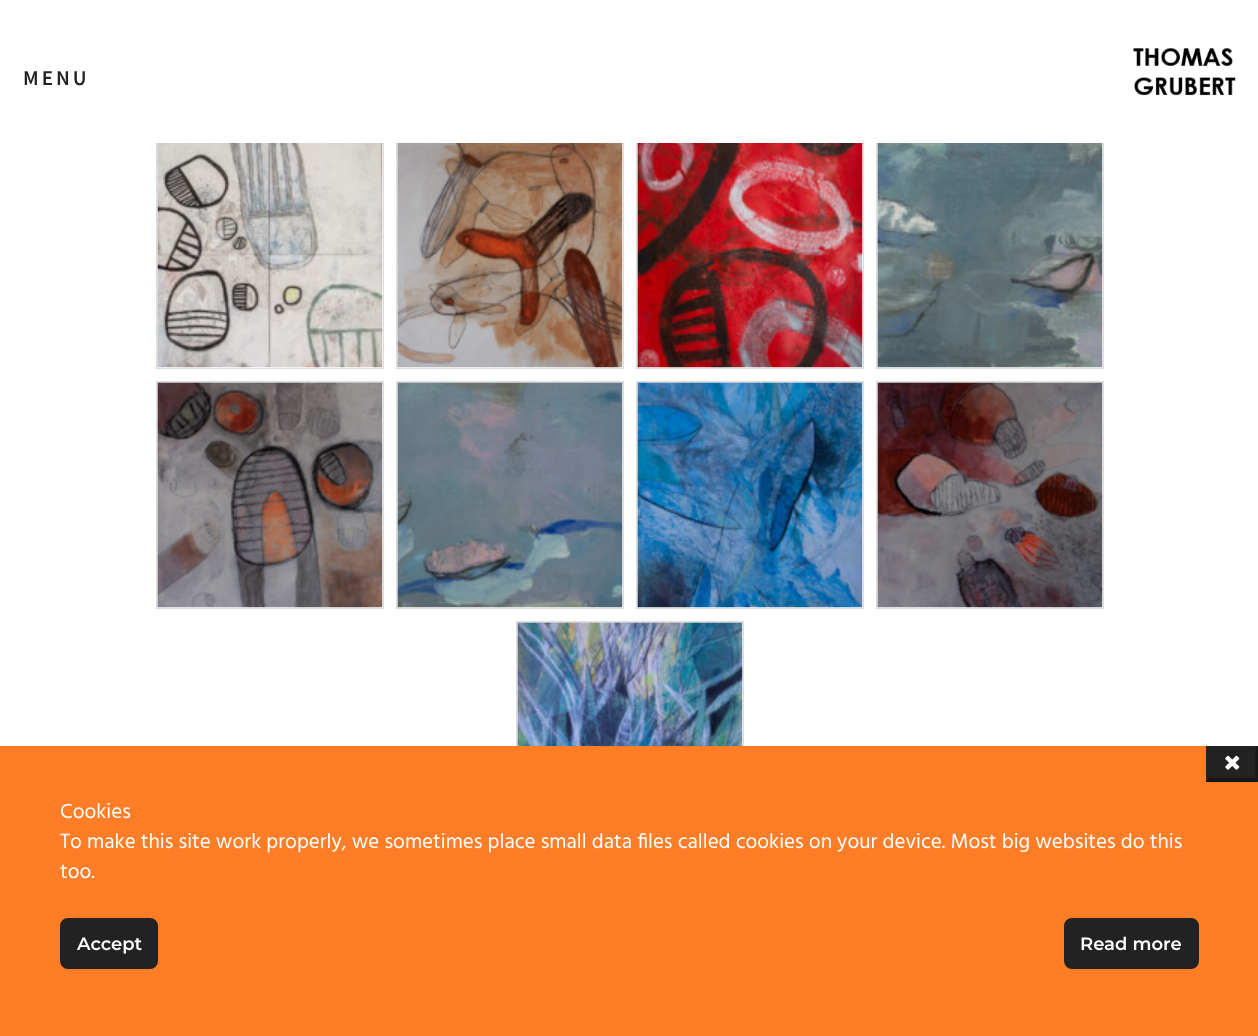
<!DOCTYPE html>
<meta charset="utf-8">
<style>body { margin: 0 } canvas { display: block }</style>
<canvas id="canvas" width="1258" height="1036"></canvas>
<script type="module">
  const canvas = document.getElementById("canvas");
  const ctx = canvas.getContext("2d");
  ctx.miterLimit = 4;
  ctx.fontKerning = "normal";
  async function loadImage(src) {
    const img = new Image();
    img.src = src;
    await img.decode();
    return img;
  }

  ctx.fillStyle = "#ffffff";
  ctx.fillRect(0, 0, 1258, 1036);
  ctx.strokeStyle = "#dddddd";
  ctx.lineWidth = 2;
  ctx.strokeRect(157, 142, 226, 226);
  ctx.strokeRect(397, 142, 226, 226);
  ctx.strokeRect(637, 142, 226, 226);
  ctx.strokeRect(877, 142, 226, 226);
  ctx.fillRect(156, 141, 948, 2);
  ctx.letterSpacing = "3px";
  ctx.font = "600 21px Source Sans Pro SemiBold";
  ctx.fillStyle = "#222222";
  ctx.fillText("MENU", 23, 85);
  ctx.drawImage(await loadImage("img1.png"), 1133, 48, 103, 48);
  ctx.fillStyle = "#ffffff";
  ctx.fillRect(158, 143, 225, 225);
  ctx.drawImage(await loadImage("img2.png"), 157, 143, 226, 225);
  ctx.fillRect(398, 143, 225, 225);
  ctx.drawImage(await loadImage("img3.png"), 397, 143, 226, 225);
  ctx.fillRect(638, 143, 225, 225);
  ctx.drawImage(await loadImage("img4.png"), 637, 143, 226, 225);
  ctx.fillRect(878, 143, 225, 225);
  ctx.drawImage(await loadImage("img5.png"), 877, 143, 226, 225);
  ctx.strokeRect(157, 382, 226, 226);
  ctx.fillRect(158, 383, 225, 225);
  ctx.drawImage(await loadImage("img6.png"), 157, 382, 226, 226);
  ctx.strokeRect(397, 382, 226, 226);
  ctx.fillRect(398, 383, 225, 225);
  ctx.drawImage(await loadImage("img7.png"), 397, 382, 226, 226);
  ctx.strokeRect(637, 382, 226, 226);
  ctx.fillRect(638, 383, 225, 225);
  ctx.drawImage(await loadImage("img8.png"), 637, 382, 226, 226);
  ctx.strokeRect(877, 382, 226, 226);
  ctx.fillRect(878, 383, 225, 225);
  ctx.drawImage(await loadImage("img9.png"), 877, 382, 226, 226);
  ctx.strokeRect(517, 622, 226, 226);
  ctx.fillRect(742, 623, 1, 123);
  ctx.drawImage(await loadImage("img10.png"), 517, 622, 226, 124);
  ctx.fillStyle = "#ff7d27";
  ctx.fillRect(0, 746, 1258, 290);
  ctx.fillStyle = "#222222";
  ctx.fillRect(1206, 746, 52, 36);
  ctx.fillStyle = "#171717";
  ctx.beginPath();
  ctx.moveTo(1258.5, 745.5);
  ctx.lineTo(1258.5, 781.5);
  ctx.lineTo(1255.5, 778.5);
  ctx.lineTo(1255.5, 748.5);
  ctx.closePath();
  ctx.fill();
  ctx.beginPath();
  ctx.moveTo(1258, 782);
  ctx.lineTo(1206, 782);
  ctx.lineTo(1209, 778);
  ctx.lineTo(1256, 778);
  ctx.closePath();
  ctx.fill();
  ctx.fillStyle = "#222222";
  ctx.beginPath();
  ctx.moveTo(1206, 781.5);
  ctx.lineTo(1206, 745.5);
  ctx.lineTo(1209, 748.5);
  ctx.lineTo(1209, 778.5);
  ctx.closePath();
  ctx.fill();
  ctx.drawImage(await loadImage("img11.png"), 1225, 755, 15, 15);
  ctx.letterSpacing = "0px";
  ctx.font = "21px Hind";
  ctx.fillStyle = "#ffffff";
  ctx.fillText("Cookies", 60, 818);
  ctx.fillText("To make this site work properly, we sometimes place small data files called cookies on your device. Most big websites do this", 60, 848);
  ctx.fillText("too.", 60, 878);
  ctx.fillStyle = "#222222";
  ctx.beginPath();
  ctx.roundRect(61, 919, 96, 49, 7);
  ctx.fill();
  ctx.strokeStyle = "#222222";
  ctx.stroke();
  ctx.font = "600 18px Montserrat";
  ctx.fillStyle = "#ffffff";
  ctx.fillText("Accept", 77, 950);
  ctx.fillStyle = "#222222";
  ctx.beginPath();
  ctx.roundRect(1065, 919, 133, 49, 7);
  ctx.fill();
  ctx.stroke();
  ctx.fillStyle = "#ffffff";
  ctx.fillText("Read more", 1080, 950);
</script>
